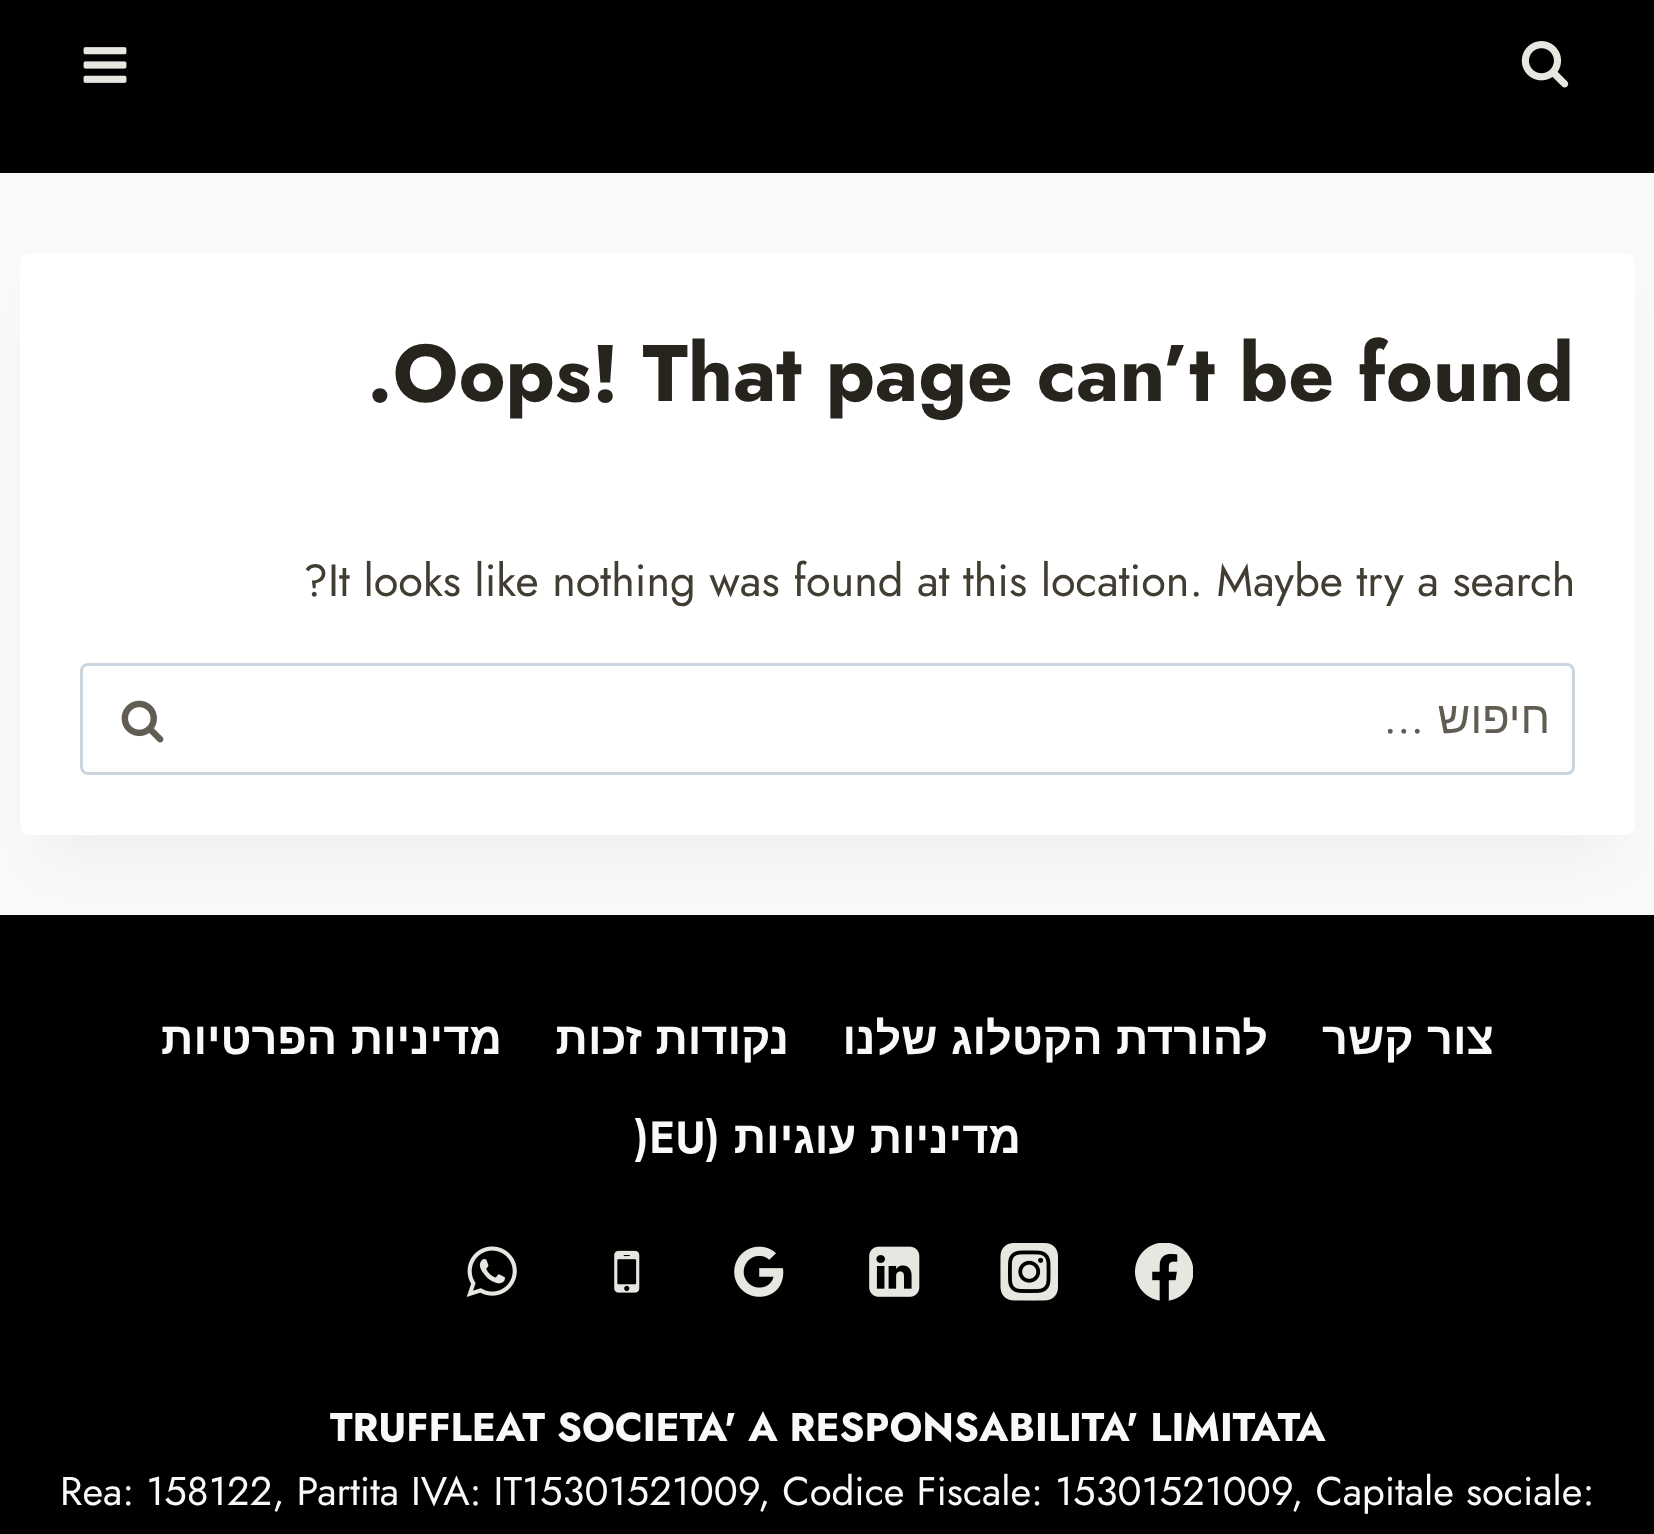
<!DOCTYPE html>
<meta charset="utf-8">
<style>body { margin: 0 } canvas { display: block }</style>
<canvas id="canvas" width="1654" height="1534"></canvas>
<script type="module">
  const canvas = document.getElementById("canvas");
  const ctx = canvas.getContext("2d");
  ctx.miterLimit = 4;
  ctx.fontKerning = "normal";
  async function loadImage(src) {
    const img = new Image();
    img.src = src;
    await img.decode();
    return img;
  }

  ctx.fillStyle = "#faf9f7";
  ctx.fillRect(0, 0, 1654, 1534);
  ctx.fillStyle = "#000000";
  ctx.fillRect(0, 0, 1654, 173);
  ctx.drawImage(await loadImage("img1.png"), 83, 47, 44, 36);
  ctx.drawImage(await loadImage("img2.png"), 1521, 41, 48, 47);
  ctx.fillRect(0, 915, 1654, 619);
  ctx.fillStyle = "rgba(0, 0, 0, 0.05)";
  ctx.filter = "blur(31px)";
  ctx.beginPath();
  ctx.rect(45, 315, 1565, 533);
  ctx.fill();
  ctx.filter = "none";
  ctx.fillStyle = "#ffffff";
  ctx.beginPath();
  ctx.roundRect(20, 253, 1615, 582, 10);
  ctx.fill();
  ctx.font = "bold 80px Jost";
  ctx.fillStyle = "#27241d";
  ctx.fillText(".Oops! That page can’t be found", 367, 401);
  ctx.font = "45px Jost";
  ctx.fillStyle = "#423d33";
  ctx.fillText("?It looks like nothing was found at this location. Maybe try a search", 303, 596);
  ctx.beginPath();
  ctx.roundRect(81.5, 664.5, 1492, 109, 6.5);
  ctx.strokeStyle = "#cbd5e0";
  ctx.lineWidth = 3;
  ctx.stroke();
  ctx.drawImage(await loadImage("img3.png"), 121, 700, 43, 43);
  ctx.direction = "rtl";
  ctx.fillStyle = "#625d52";
  ctx.fillText("…", 1424, 733);
  ctx.font = "45px Liberation Sans";
  ctx.fillText("חיפוש", 1550, 733);
  ctx.wordSpacing = "1px";
  ctx.font = "bold 45px Liberation Sans";
  ctx.fillStyle = "#faf9f7";
  ctx.fillText("מדיניות הפרטיות", 502, 1054);
  ctx.fillText("נקודות זכות", 789, 1054);
  ctx.fillText("להורדת הקטלוג שלנו", 1268, 1054);
  ctx.fillText("צור קשר", 1494, 1054);
  ctx.wordSpacing = "0px";
  ctx.direction = "ltr";
  ctx.font = "600 45px Jost";
  ctx.fillText(")EU", 634, 1153);
  ctx.direction = "rtl";
  ctx.fillText("(", 720, 1153);
  ctx.wordSpacing = "1px";
  ctx.font = "bold 45px Liberation Sans";
  ctx.fillText("מדיניות עוגיות", 1021, 1153);
  ctx.drawImage(await loadImage("img4.png"), 466, 1246, 51, 51);
  ctx.drawImage(await loadImage("img5.png"), 614, 1250, 26, 43);
  ctx.drawImage(await loadImage("img6.png"), 734, 1246, 50, 51);
  ctx.drawImage(await loadImage("img7.png"), 869, 1246, 51, 51);
  ctx.drawImage(await loadImage("img8.png"), 1000, 1243, 58, 58);
  ctx.drawImage(await loadImage("img9.png"), 1135, 1243, 58, 58);
  ctx.wordSpacing = "0px";
  ctx.direction = "ltr";
  ctx.font = "bold 40px Jost";
  ctx.fillText("TRUFFLEAT SOCIETA' A RESPONSABILITA' LIMITATA", 330, 1441);
  ctx.font = "40px Jost";
  ctx.fillText("Rea: 158122, Partita IVA: IT15301521009, Codice Fiscale: 15301521009, Capitale sociale:", 60, 1505);
</script>
